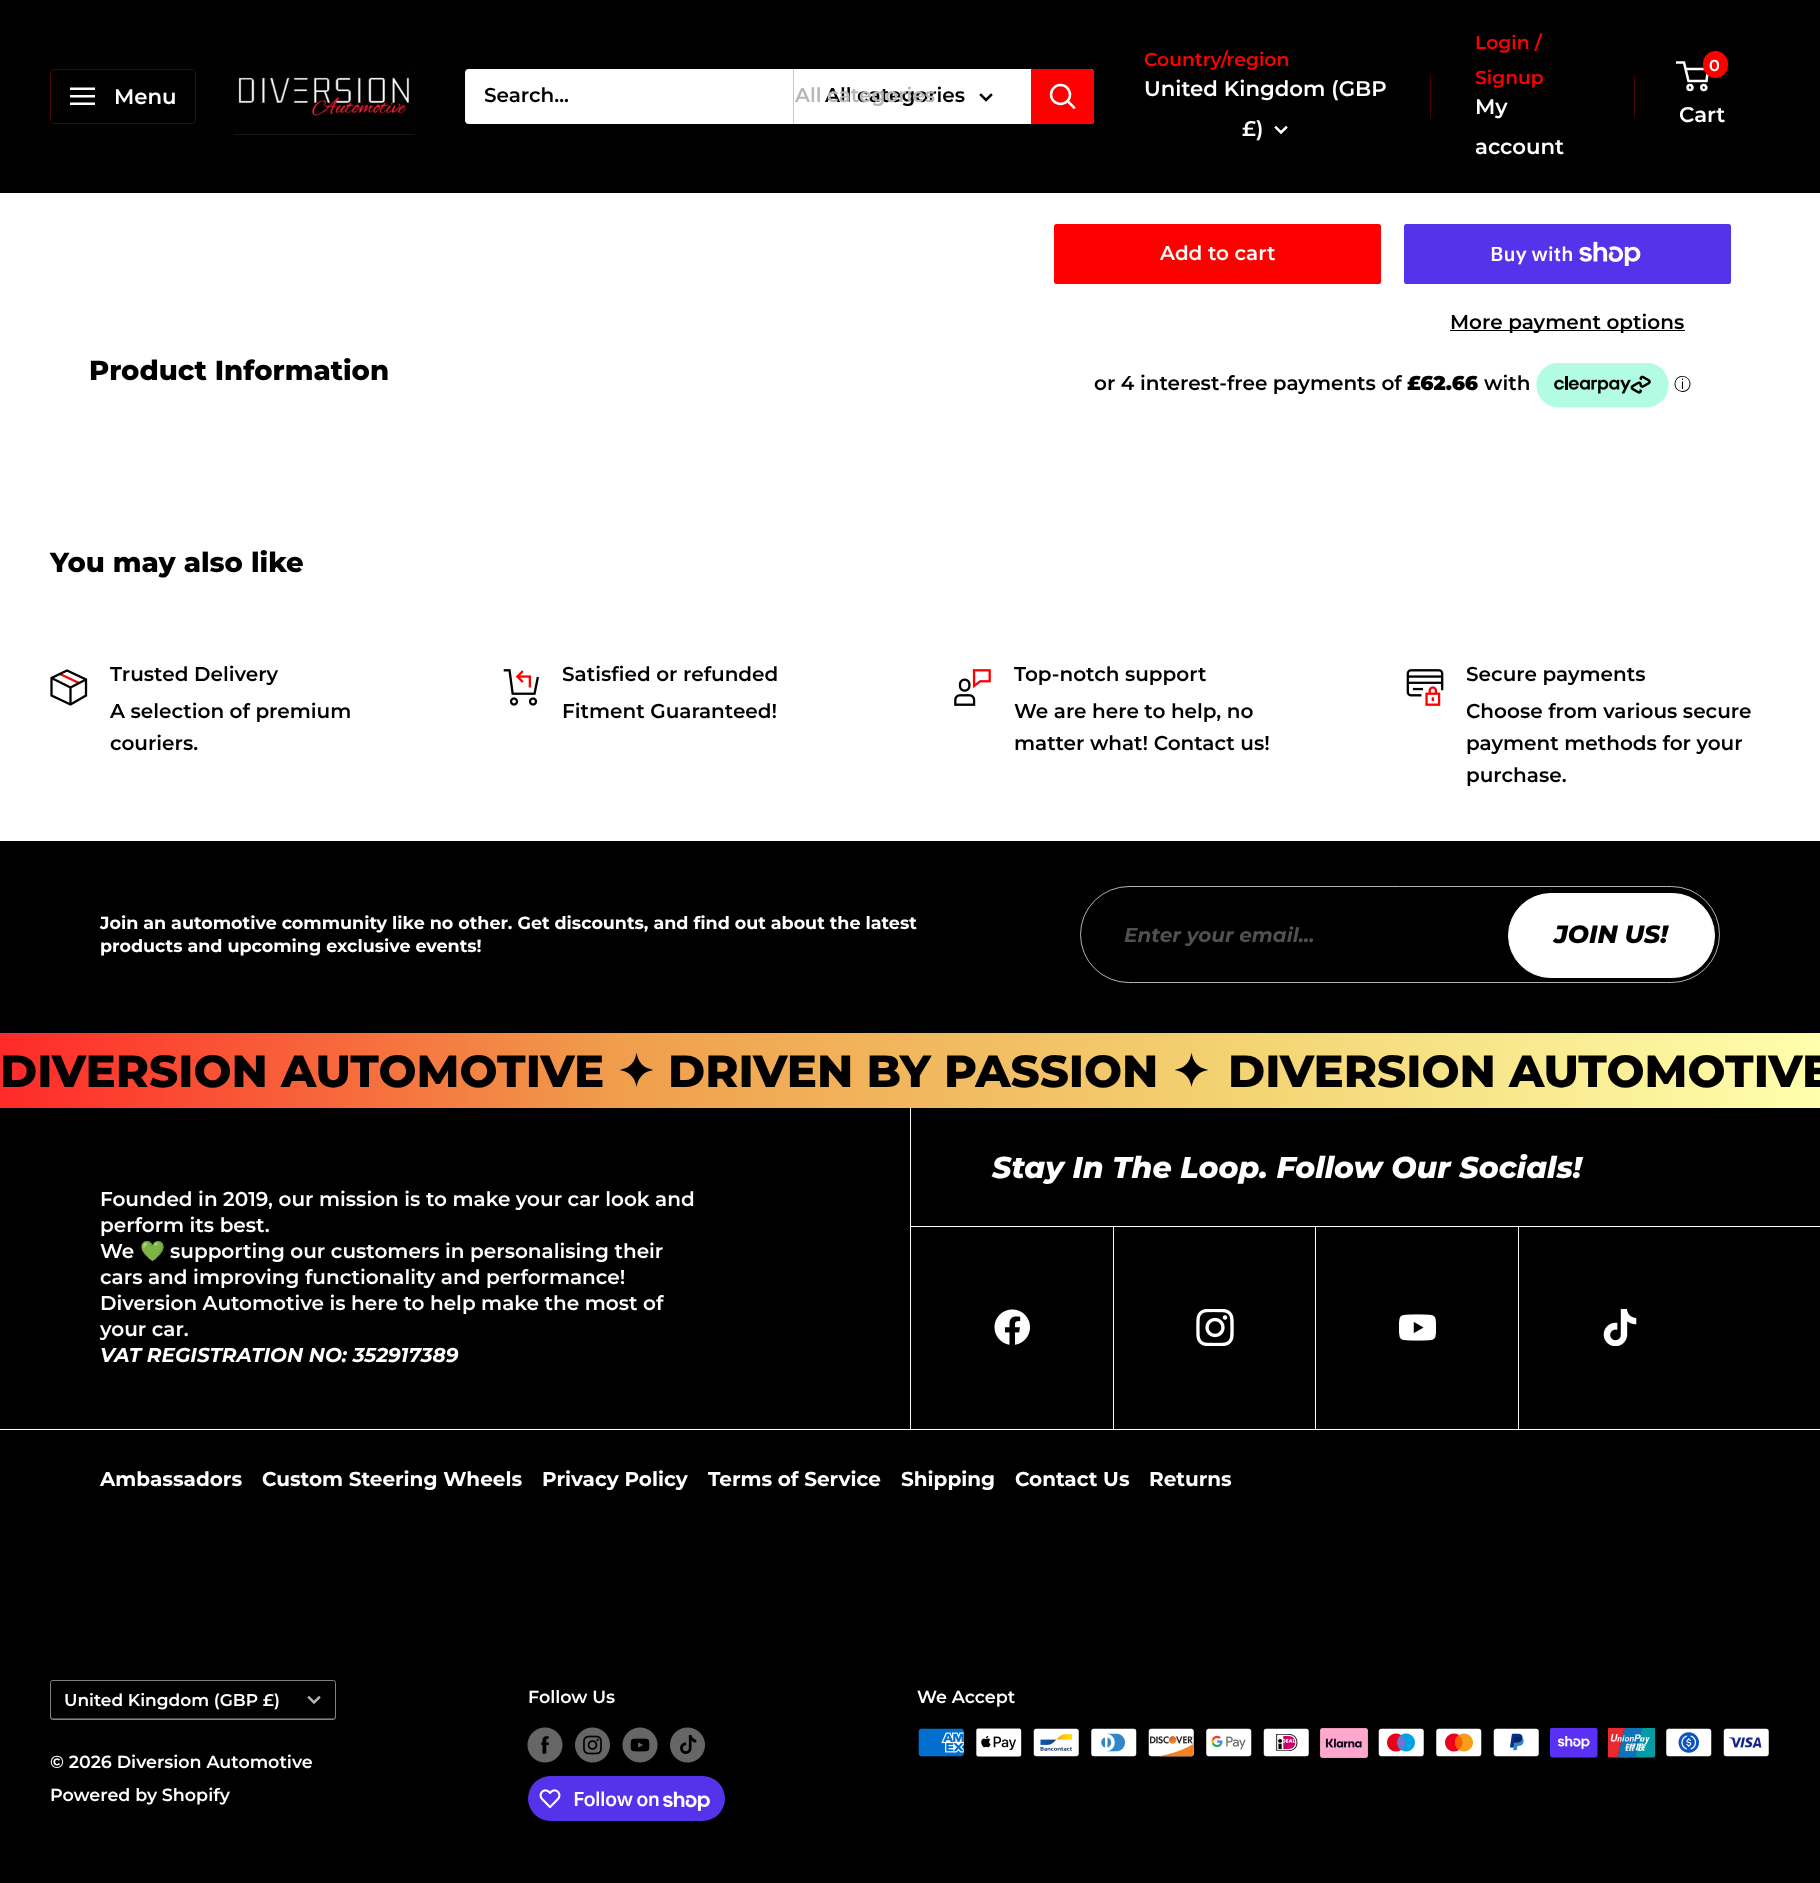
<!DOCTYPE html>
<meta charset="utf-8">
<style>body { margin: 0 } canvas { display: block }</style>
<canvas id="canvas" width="1820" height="1883"></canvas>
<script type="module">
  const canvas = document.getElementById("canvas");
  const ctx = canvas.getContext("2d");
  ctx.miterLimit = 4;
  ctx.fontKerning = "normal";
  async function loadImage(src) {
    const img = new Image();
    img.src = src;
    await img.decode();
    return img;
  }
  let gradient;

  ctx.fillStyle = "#ffffff";
  ctx.fillRect(0, 0, 1820, 1883);
  ctx.fillStyle = "#000000";
  ctx.fillRect(0, 0, 1820, 193);
  ctx.beginPath();
  ctx.roundRect(50.5, 69.5, 145, 54, 3.5);
  ctx.strokeStyle = "#4d0000";
  ctx.stroke();
  ctx.drawImage(await loadImage("img1.png"), 70, 87, 25, 18);
  ctx.font = "600 21.25px Montserrat";
  ctx.fillStyle = "#ffffff";
  ctx.fillText("Menu", 114, 104);
  ctx.drawImage(await loadImage("img2.png"), 233, 58, 182, 77);
  ctx.beginPath();
  ctx.roundRect(465, 69, 629, 55, 4);
  ctx.fill();
  ctx.font = "600 20px Montserrat";
  ctx.fillStyle = "#000000";
  ctx.fillText("Search...", 484, 102);
  ctx.fillStyle = "#ffb3b3";
  ctx.fillRect(793, 69, 1, 55);
  ctx.fillStyle = "#000000";
  ctx.fillText("All categories", 825, 102);
  ctx.fillStyle = "#b7b7b7";
  ctx.fillText("All categories", 795, 102);
  ctx.beginPath();
  ctx.moveTo(991, 95);
  ctx.lineTo(986, 100);
  ctx.lineTo(981, 95);
  ctx.strokeStyle = "#000000";
  ctx.lineWidth = 2.5;
  ctx.lineCap = "square";
  ctx.stroke();
  ctx.fillStyle = "#ff0000";
  ctx.beginPath();
  ctx.roundRect(1031, 69, 63, 55, [0, 4, 4, 0]);
  ctx.fill();
  ctx.beginPath();
  ctx.moveTo(1074, 107.5);
  ctx.lineTo(1067.5, 101);
  ctx.strokeStyle = "#ffffff";
  ctx.stroke();
  ctx.beginPath();
  ctx.arc(1060.5, 94.5, 9.5, 0, Math.PI * 2);
  ctx.stroke();
  ctx.font = "600 18.75px Montserrat";
  ctx.fillText("Country/region", 1144, 66);
  ctx.font = "600 21.25px Montserrat";
  ctx.fillStyle = "#ffffff";
  ctx.fillText("United Kingdom (GBP", 1144, 96);
  ctx.fillText("£)", 1242, 136);
  ctx.beginPath();
  ctx.moveTo(1286, 127.5);
  ctx.lineTo(1281, 132.5);
  ctx.lineTo(1276, 127.5);
  ctx.stroke();
  ctx.fillStyle = "#4d0000";
  ctx.fillRect(1430, 75, 1, 43);
  ctx.font = "600 18.75px Montserrat";
  ctx.fillStyle = "#ff0000";
  ctx.fillText("Login /", 1475, 49);
  ctx.fillText("Signup", 1475, 84);
  ctx.font = "600 21.25px Montserrat";
  ctx.fillStyle = "#ffffff";
  ctx.fillText("My", 1475, 114);
  ctx.fillText("account", 1475, 154);
  ctx.fillStyle = "#4d0000";
  ctx.fillRect(1634, 75, 1, 43);
  ctx.beginPath();
  ctx.arc(1690, 87.5, 2.5, 0, Math.PI * 2);
  ctx.stroke();
  ctx.beginPath();
  ctx.arc(1703.8, 87.5, 2.5, 0, Math.PI * 2);
  ctx.stroke();
  ctx.beginPath();
  ctx.moveTo(1685.5, 69);
  ctx.lineTo(1708, 69);
  ctx.lineTo(1706.5, 81);
  ctx.lineTo(1688.5, 81);
  ctx.lineTo(1684, 62.5);
  ctx.lineTo(1676, 62.5);
  ctx.lineCap = "butt";
  ctx.stroke();
  ctx.fillStyle = "#ff0000";
  ctx.beginPath();
  ctx.roundRect(1703, 51, 25, 27, 12.5);
  ctx.fill();
  ctx.font = "600 16px Montserrat";
  ctx.fillStyle = "#ffffff";
  ctx.fillText("0", 1709, 71);
  ctx.font = "600 21.25px Montserrat";
  ctx.fillText("Cart", 1679, 122);
  ctx.font = "800 27.5px Montserrat";
  ctx.fillStyle = "#000000";
  ctx.fillText("Product Information", 89, 380);
  ctx.fillStyle = "#ff0000";
  ctx.beginPath();
  ctx.roundRect(1054, 224, 327, 60, 2.5);
  ctx.fill();
  ctx.font = "600 20px Montserrat";
  ctx.fillStyle = "#ffffff";
  ctx.fillText("Add to cart", 1160, 260);
  ctx.fillStyle = "#5433eb";
  ctx.beginPath();
  ctx.roundRect(1404, 224, 327, 60, 2.5);
  ctx.fill();
  ctx.font = "600 20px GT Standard";
  ctx.fillStyle = "#ffffff";
  ctx.fillText("Buy with", 1490, 261);
  ctx.drawImage(await loadImage("img3.png"), 1579, 241, 62, 25);
  ctx.fillStyle = "#000000";
  ctx.fillRect(1450, 330, 235, 1);
  ctx.font = "600 20px Montserrat";
  ctx.fillText("More payment options", 1450, 329);
  ctx.fillText("or 4 interest-free payments of", 1094, 390);
  ctx.font = "900 20px Montserrat";
  ctx.fillText("£62.66", 1407, 390);
  ctx.font = "600 20px Montserrat";
  ctx.fillText("with", 1484, 390);
  ctx.drawImage(await loadImage("img4.png"), 1536, 363, 133, 45);
  ctx.font = "500 17px WenQuanYi Zen Hei";
  ctx.fillText("ⓘ", 1674, 390);
  ctx.font = "800 27.5px Montserrat";
  ctx.fillText("You may also like", 50, 572);
  ctx.beginPath();
  ctx.moveTo(60, 674);
  ctx.lineTo(79, 683);
  ctx.strokeStyle = "#ff0000";
  ctx.lineWidth = 2.3;
  ctx.stroke();
  ctx.beginPath();
  ctx.moveTo(86, 679.5);
  ctx.lineTo(70.5, 687.5);
  ctx.lineTo(51.5, 678);
  ctx.moveTo(70.5, 687.5);
  ctx.lineTo(70.5, 704.5);
  ctx.strokeStyle = "#000000";
  ctx.stroke();
  ctx.beginPath();
  ctx.moveTo(86, 679.5);
  ctx.lineTo(86, 695.5);
  ctx.lineTo(70.5, 704.5);
  ctx.lineTo(51.5, 695.5);
  ctx.lineTo(51.5, 678);
  ctx.lineTo(67, 670.5);
  ctx.closePath();
  ctx.lineCap = "square";
  ctx.stroke();
  ctx.font = "600 20px Montserrat";
  ctx.fillText("Trusted Delivery", 110, 681);
  ctx.fillText("A selection of premium", 110, 718);
  ctx.fillText("couriers.", 110, 750);
  ctx.drawImage(await loadImage("img5.png"), 503, 669, 36, 37);
  ctx.fillText("Satisfied or refunded", 562, 681);
  ctx.fillText("Fitment Guaranteed!", 562, 718);
  ctx.drawImage(await loadImage("img6.png"), 954, 669, 37, 37);
  ctx.fillText("Top-notch support", 1014, 681);
  ctx.fillText("We are here to help, no", 1014, 718);
  ctx.fillText("matter what! Contact us!", 1014, 750);
  ctx.drawImage(await loadImage("img7.png"), 1406, 669, 38, 37);
  ctx.fillText("Secure payments", 1466, 681);
  ctx.fillText("Choose from various secure", 1466, 718);
  ctx.fillText("payment methods for your", 1466, 750);
  ctx.fillText("purchase.", 1466, 782);
  ctx.fillRect(0, 841, 1820, 1042);
  ctx.font = "bold 17.5px Montserrat";
  ctx.fillStyle = "#ffffff";
  ctx.fillText("Join an automotive community like no other. Get discounts, and find out about the latest", 100, 929);
  ctx.fillText("products and upcoming exclusive events!", 100, 952);
  ctx.beginPath();
  ctx.roundRect(1080.5, 886.5, 639, 96, 48);
  ctx.strokeStyle = "#b3b3b3";
  ctx.lineWidth = 1;
  ctx.stroke();
  ctx.font = "italic bold 20px Montserrat";
  ctx.fillStyle = "#505152";
  ctx.fillText("Enter your email...", 1124, 942);
  ctx.fillStyle = "#ffffff";
  ctx.beginPath();
  ctx.roundRect(1508.5, 893.5, 206, 84, 42);
  ctx.fill();
  ctx.strokeStyle = "#ffffff";
  ctx.stroke();
  ctx.font = "italic 800 25px Montserrat";
  ctx.fillStyle = "#000000";
  ctx.fillText("JOIN US!", 1554, 943);
  gradient = ctx.createLinearGradient(0, 1070, 1820, 1070);
  gradient.addColorStop(0, "#ff2929");
  gradient.addColorStop(0.34, "#f09e4c");
  gradient.addColorStop(0.68, "#f3d372");
  gradient.addColorStop(1, "#ffffad");
  ctx.fillStyle = gradient;
  ctx.fillRect(0, 1033, 1820, 75);
  ctx.font = "800 45px Montserrat";
  ctx.fillStyle = "#000000";
  ctx.fillText("DIVERSION AUTOMOTIVE", 0, 1087);
  ctx.font = "bold 45px DejaVu Sans";
  ctx.fillText("✦", 617, 1087);
  ctx.font = "800 45px Montserrat";
  ctx.fillText("DRIVEN BY PASSION", 668, 1087);
  ctx.font = "bold 45px DejaVu Sans";
  ctx.fillText("✦", 1172, 1087);
  ctx.font = "800 45px Montserrat";
  ctx.fillText("DIVERSION AUTOMOTIVE", 1228, 1087);
  ctx.fillStyle = "#ffffff";
  ctx.fillRect(910, 1108, 1, 321);
  ctx.font = "italic 800 30px Montserrat";
  ctx.fillText("Stay In The Loop. Follow Our Socials!", 992, 1178);
  ctx.fillRect(1113, 1226, 1, 203);
  ctx.fillRect(1315, 1226, 1, 203);
  ctx.fillRect(1518, 1226, 1, 203);
  ctx.fillRect(911, 1226, 909, 1);
  ctx.drawImage(await loadImage("img8.png"), 994, 1309, 36, 36);
  ctx.drawImage(await loadImage("img9.png"), 1196, 1309, 38, 37);
  ctx.drawImage(await loadImage("img10.png"), 1399, 1314, 37, 27);
  ctx.drawImage(await loadImage("img11.png"), 1603, 1309, 34, 37);
  ctx.font = "600 20px Montserrat";
  ctx.fillText("Founded in 2019, our mission is to make your car look and", 100, 1206);
  ctx.fillText("perform its best.", 100, 1232);
  ctx.fillText("We", 100, 1258);
  ctx.font = "bold 20px Noto Color Emoji";
  ctx.fillText("💚", 140, 1258);
  ctx.font = "600 20px Montserrat";
  ctx.fillText("supporting our customers in personalising their", 170, 1258);
  ctx.fillText("cars and improving functionality and performance!", 100, 1284);
  ctx.fillText("Diversion Automotive is here to help make the most of", 100, 1310);
  ctx.fillText("your car.", 100, 1336);
  ctx.font = "italic bold 20px Montserrat";
  ctx.fillText("VAT REGISTRATION NO: 352917389", 100, 1362);
  ctx.fillRect(0, 1429, 1820, 1);
  ctx.font = "bold 20px Montserrat";
  ctx.fillText("Ambassadors", 100, 1486);
  ctx.fillText("Custom Steering Wheels", 262, 1486);
  ctx.fillText("Privacy Policy", 542, 1486);
  ctx.fillText("Terms of Service", 708, 1486);
  ctx.fillText("Shipping", 901, 1486);
  ctx.fillText("Contact Us", 1015, 1486);
  ctx.fillText("Returns", 1149, 1486);
  ctx.fillStyle = "#4d4d4d";
  ctx.beginPath();
  ctx.moveTo(51, 1716);
  ctx.lineTo(51, 1719);
  ctx.lineTo(334, 1719);
  ctx.bezierCurveTo(335, 1719, 335, 1717, 335, 1716);
  ctx.lineTo(334, 1718);
  ctx.lineTo(52, 1718);
  ctx.closePath();
  ctx.fill();
  ctx.beginPath();
  ctx.roundRect(50.5, 1680.5, 285, 39, 2);
  ctx.strokeStyle = "#808080";
  ctx.stroke();
  ctx.font = "600 17px Montserrat";
  ctx.fillStyle = "#ffffff";
  ctx.fillText("United Kingdom (GBP £)", 64, 1706);
  ctx.beginPath();
  ctx.moveTo(319, 1697.5);
  ctx.lineTo(314, 1702.5);
  ctx.lineTo(309, 1697.5);
  ctx.strokeStyle = "#b3b3b3";
  ctx.lineWidth = 2.5;
  ctx.stroke();
  ctx.font = "600 17.5px Montserrat";
  ctx.fillText("© 2026 Diversion Automotive", 50, 1768);
  ctx.fillText("Powered by Shopify", 50, 1801);
  ctx.fillText("Follow Us", 528, 1703);
  ctx.drawImage(await loadImage("img12.png"), 527, 1727, 36, 36);
  ctx.drawImage(await loadImage("img13.png"), 575, 1727, 35, 36);
  ctx.drawImage(await loadImage("img14.png"), 622, 1727, 36, 36);
  ctx.drawImage(await loadImage("img15.png"), 670, 1727, 35, 36);
  ctx.fillStyle = "#5433eb";
  ctx.beginPath();
  ctx.roundRect(528, 1776, 197, 45, 22.5);
  ctx.fill();
  ctx.drawImage(await loadImage("img16.png"), 539, 1789, 22, 20);
  ctx.letterSpacing = "-0.6px";
  ctx.font = "600 20px GT Standard";
  ctx.fillStyle = "#ffffff";
  ctx.fillText("Follow on", 573, 1806);
  ctx.drawImage(await loadImage("img17.png"), 663, 1791, 47, 20);
  ctx.letterSpacing = "0px";
  ctx.font = "600 17.5px Montserrat";
  ctx.fillText("We Accept", 917, 1703);
  ctx.drawImage(await loadImage("img18.png"), 918, 1728, 46, 29);
  ctx.drawImage(await loadImage("img19.png"), 976, 1728, 46, 29);
  ctx.drawImage(await loadImage("img20.png"), 1033, 1728, 46, 29);
  ctx.drawImage(await loadImage("img21.png"), 1091, 1728, 46, 29);
  ctx.drawImage(await loadImage("img22.png"), 1148, 1728, 46, 29);
  ctx.drawImage(await loadImage("img23.png"), 1206, 1728, 46, 29);
  ctx.drawImage(await loadImage("img24.png"), 1263, 1728, 46, 29);
  ctx.drawImage(await loadImage("img25.png"), 1320, 1728, 48, 30);
  ctx.drawImage(await loadImage("img26.png"), 1378, 1728, 46, 29);
  ctx.drawImage(await loadImage("img27.png"), 1436, 1728, 46, 29);
  ctx.drawImage(await loadImage("img28.png"), 1493, 1728, 46, 29);
  ctx.drawImage(await loadImage("img29.png"), 1550, 1728, 48, 30);
  ctx.drawImage(await loadImage("img30.png"), 1608, 1728, 47, 30);
  ctx.drawImage(await loadImage("img31.png"), 1666, 1728, 46, 29);
  ctx.drawImage(await loadImage("img32.png"), 1723, 1728, 46, 29);
</script>
